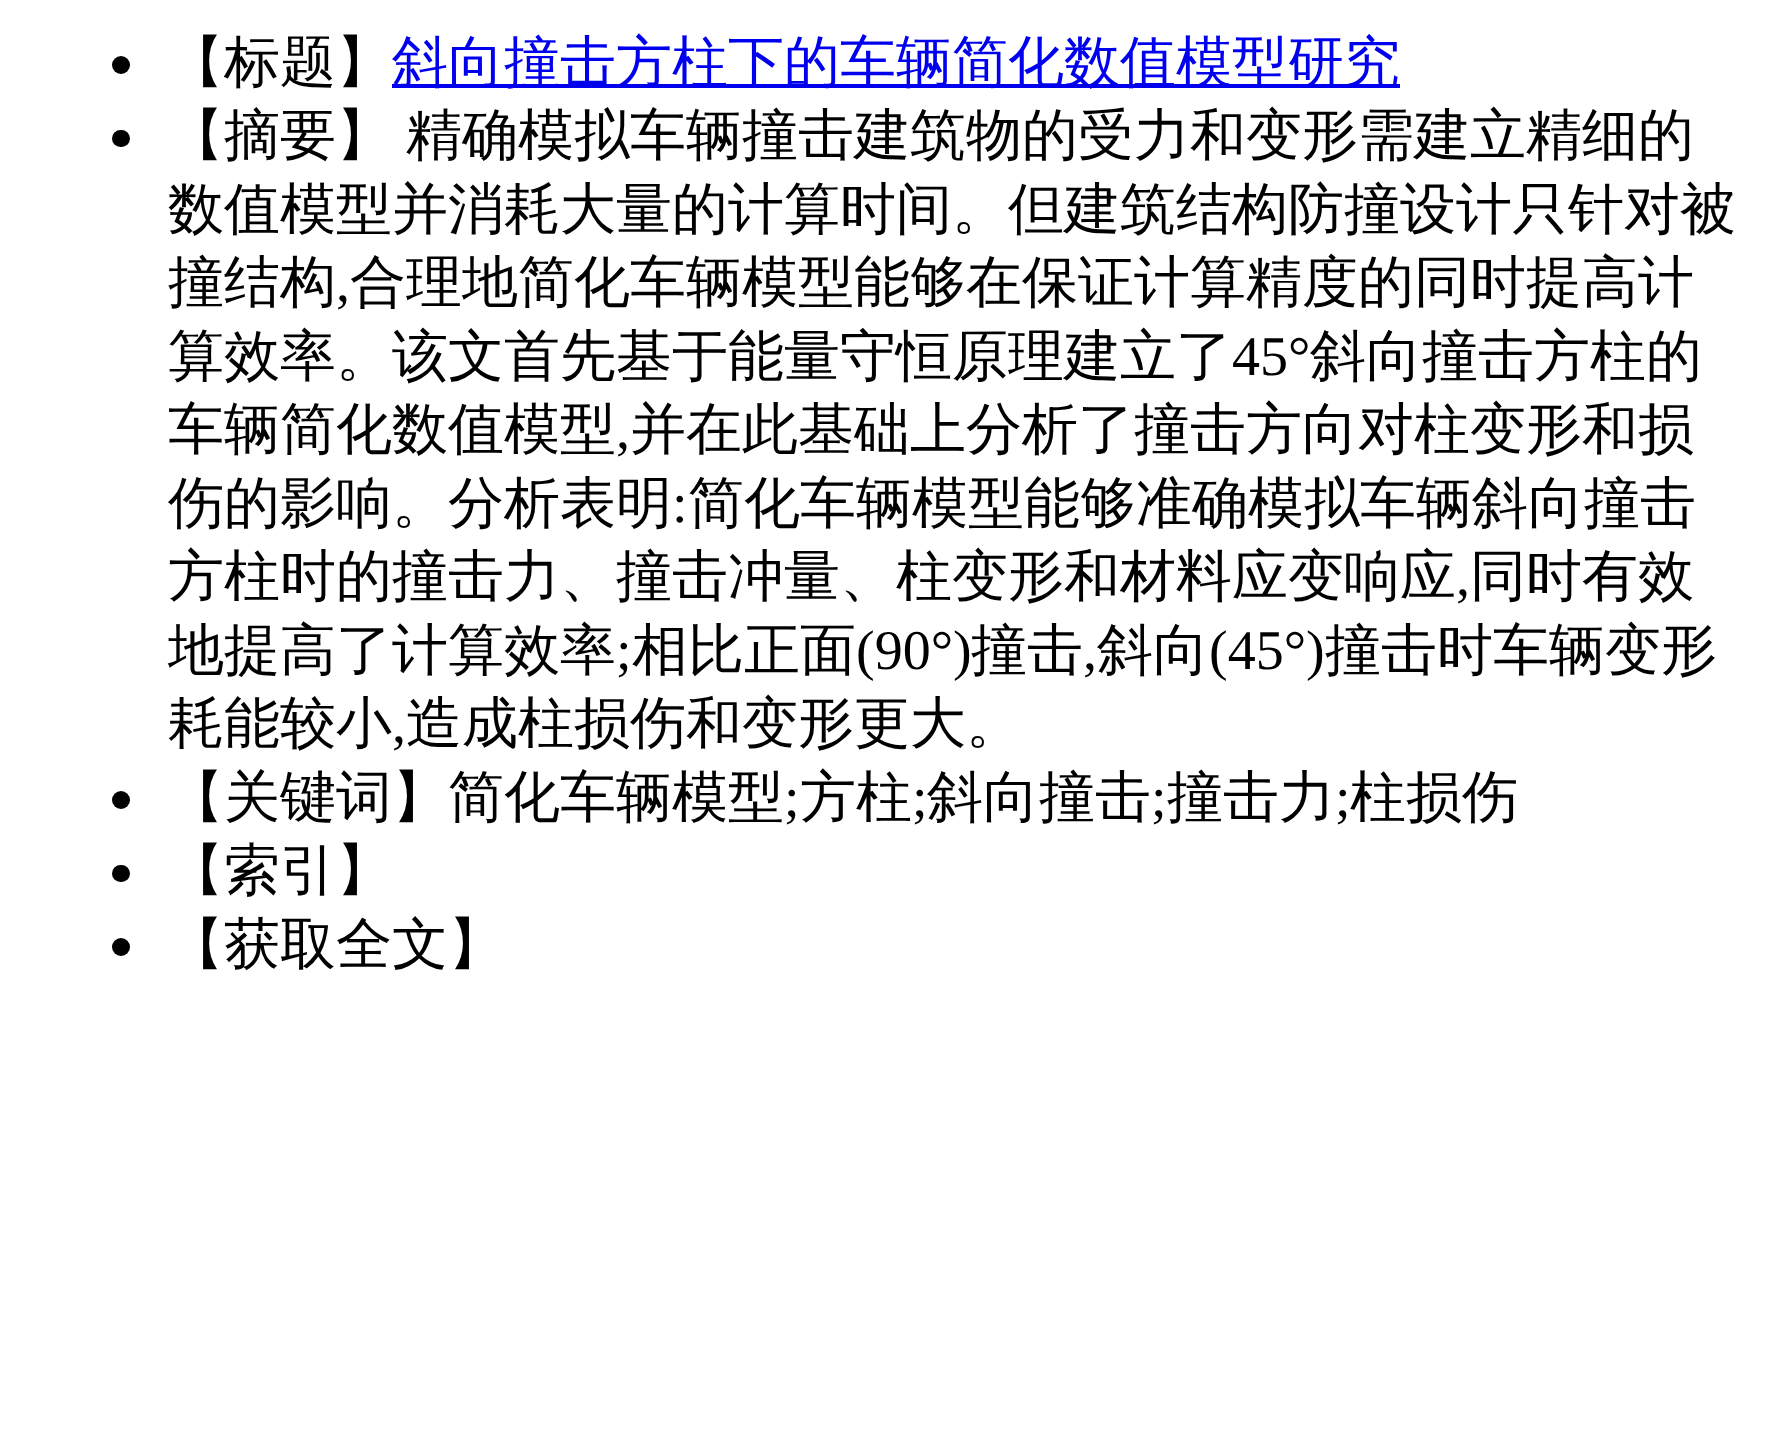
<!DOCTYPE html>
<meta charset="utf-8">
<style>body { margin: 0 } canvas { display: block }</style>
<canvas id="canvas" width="1767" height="1436"></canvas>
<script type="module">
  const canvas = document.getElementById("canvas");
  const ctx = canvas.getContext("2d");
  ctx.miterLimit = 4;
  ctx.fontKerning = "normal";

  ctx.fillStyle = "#ffffff";
  ctx.fillRect(0, 0, 1767, 1436);
  ctx.fillStyle = "#000000";
  ctx.beginPath();
  ctx.arc(121, 65, 9, 0, Math.PI * 2);
  ctx.fill();
  ctx.font = "500 56px WenQuanYi Zen Hei";
  ctx.fillText("【标题】", 168, 81);
  ctx.fillStyle = "#0000ee";
  ctx.fillRect(392, 84, 1008, 4);
  ctx.fillText("斜向撞击方柱下的车辆简化数值模型研究", 392, 81);
  ctx.fillStyle = "#000000";
  ctx.beginPath();
  ctx.roundRect(112, 130, 18, 17, 8.5);
  ctx.fill();
  ctx.fillText("【摘要】", 168, 154);
  ctx.fillText("精确模拟车辆撞击建筑物的受力和变形需建立精细的", 406, 154);
  ctx.fillText("数值模型并消耗大量的计算时间。但建筑结构防撞设计只针对被", 168, 228);
  ctx.fillText("撞结构", 168, 301);
  ctx.font = "56px Liberation Serif";
  ctx.fillText(",", 336, 301);
  ctx.font = "500 56px WenQuanYi Zen Hei";
  ctx.fillText("合理地简化车辆模型能够在保证计算精度的同时提高计", 350, 301);
  ctx.fillText("算效率。该文首先基于能量守恒原理建立了", 168, 375);
  ctx.font = "56px Liberation Serif";
  ctx.fillText("45°", 1232, 375);
  ctx.font = "500 56px WenQuanYi Zen Hei";
  ctx.fillText("斜向撞击方柱的", 1310, 375);
  ctx.fillText("车辆简化数值模型", 168, 448);
  ctx.font = "56px Liberation Serif";
  ctx.fillText(",", 616, 448);
  ctx.font = "500 56px WenQuanYi Zen Hei";
  ctx.fillText("并在此基础上分析了撞击方向对柱变形和损", 630, 448);
  ctx.fillText("伤的影响。分析表明", 168, 522);
  ctx.font = "56px Liberation Serif";
  ctx.fillText(":", 672, 522);
  ctx.font = "500 56px WenQuanYi Zen Hei";
  ctx.fillText("简化车辆模型能够准确模拟车辆斜向撞击", 688, 522);
  ctx.fillText("方柱时的撞击力、撞击冲量、柱变形和材料应变响应", 168, 595);
  ctx.font = "56px Liberation Serif";
  ctx.fillText(",", 1456, 595);
  ctx.font = "500 56px WenQuanYi Zen Hei";
  ctx.fillText("同时有效", 1470, 595);
  ctx.fillText("地提高了计算效率", 168, 669);
  ctx.font = "56px Liberation Serif";
  ctx.fillText(";", 616, 669);
  ctx.font = "500 56px WenQuanYi Zen Hei";
  ctx.fillText("相比正面", 632, 669);
  ctx.font = "56px Liberation Serif";
  ctx.fillText("(90°)", 856, 669);
  ctx.font = "500 56px WenQuanYi Zen Hei";
  ctx.fillText("撞击", 971, 669);
  ctx.font = "56px Liberation Serif";
  ctx.fillText(",", 1083, 669);
  ctx.font = "500 56px WenQuanYi Zen Hei";
  ctx.fillText("斜向", 1097, 669);
  ctx.font = "56px Liberation Serif";
  ctx.fillText("(45°)", 1209, 669);
  ctx.font = "500 56px WenQuanYi Zen Hei";
  ctx.fillText("撞击时车辆变形", 1325, 669);
  ctx.fillText("耗能较小", 168, 742);
  ctx.font = "56px Liberation Serif";
  ctx.fillText(",", 392, 742);
  ctx.font = "500 56px WenQuanYi Zen Hei";
  ctx.fillText("造成柱损伤和变形更大。", 406, 742);
  ctx.beginPath();
  ctx.arc(121, 800, 9, 0, Math.PI * 2);
  ctx.fill();
  ctx.fillText("【关键词】简化车辆模型", 168, 816);
  ctx.font = "56px Liberation Serif";
  ctx.fillText(";", 784, 816);
  ctx.font = "500 56px WenQuanYi Zen Hei";
  ctx.fillText("方柱", 800, 816);
  ctx.font = "56px Liberation Serif";
  ctx.fillText(";", 912, 816);
  ctx.font = "500 56px WenQuanYi Zen Hei";
  ctx.fillText("斜向撞击", 927, 816);
  ctx.font = "56px Liberation Serif";
  ctx.fillText(";", 1151, 816);
  ctx.font = "500 56px WenQuanYi Zen Hei";
  ctx.fillText("撞击力", 1167, 816);
  ctx.font = "56px Liberation Serif";
  ctx.fillText(";", 1335, 816);
  ctx.font = "500 56px WenQuanYi Zen Hei";
  ctx.fillText("柱损伤", 1350, 816);
  ctx.beginPath();
  ctx.roundRect(112, 865, 18, 17, 8.5);
  ctx.fill();
  ctx.fillText("【索引】", 168, 889);
  ctx.beginPath();
  ctx.arc(121, 947, 9, 0, Math.PI * 2);
  ctx.fill();
  ctx.fillText("【获取全文】", 168, 963);
</script>
